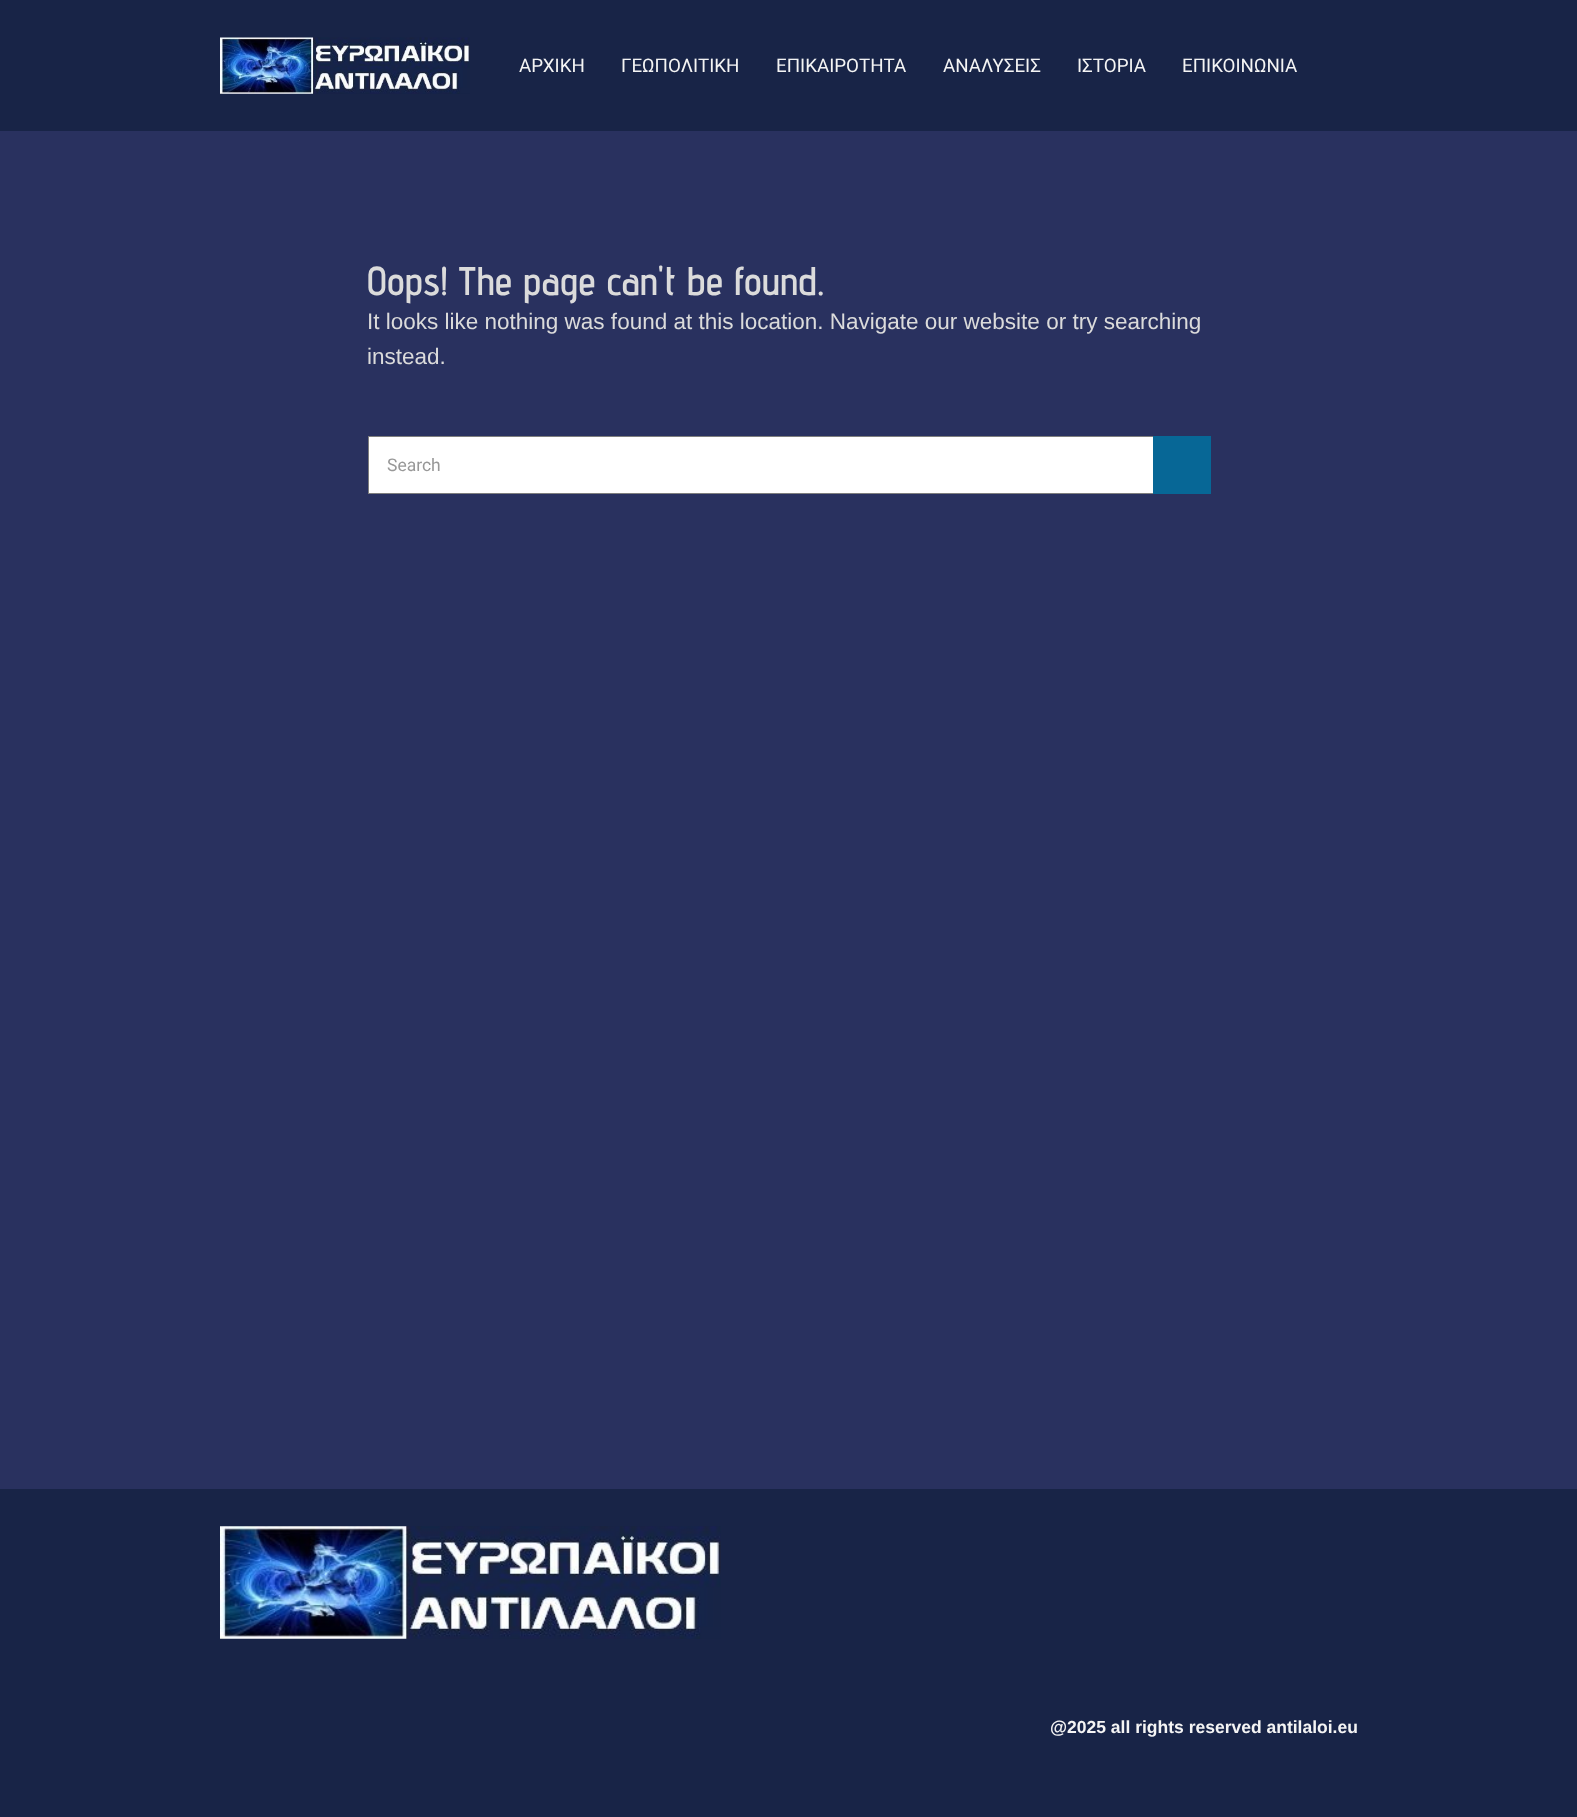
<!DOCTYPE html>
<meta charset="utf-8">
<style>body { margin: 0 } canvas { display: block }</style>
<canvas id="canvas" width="1577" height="1817"></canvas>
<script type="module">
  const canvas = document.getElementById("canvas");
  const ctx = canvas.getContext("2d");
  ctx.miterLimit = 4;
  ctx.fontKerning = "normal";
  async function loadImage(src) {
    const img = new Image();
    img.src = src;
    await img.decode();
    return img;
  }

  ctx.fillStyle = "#29315f";
  ctx.fillRect(0, 0, 1577, 1817);
  ctx.fillStyle = "#182447";
  ctx.fillRect(0, 0, 1577, 131);
  ctx.drawImage(await loadImage("img1.png"), 220, 37, 250, 57);
  ctx.font = "18.75px Roboto";
  ctx.fillStyle = "#f4f4f4";
  ctx.fillText("ΑΡΧΙΚΗ", 519, 72);
  ctx.fillText("ΓΕΩΠΟΛΙΤΙΚΗ", 621, 72);
  ctx.fillText("ΕΠΙΚΑΙΡΟΤΗΤΑ", 776, 72);
  ctx.fillText("ΑΝΑΛΥΣΕΙΣ", 943, 72);
  ctx.fillText("ΙΣΤΟΡΙΑ", 1077, 72);
  ctx.fillText("ΕΠΙΚΟΙΝΩΝΙΑ", 1182, 72);
  ctx.font = "600 40px Advent Pro";
  ctx.fillStyle = "#dbdbdb";
  ctx.fillText("Oops! The page can't be found.", 367, 295);
  ctx.font = "22.5px Liberation Sans";
  ctx.fillText("It looks like nothing was found at this location. Navigate our website or try searching", 367, 329);
  ctx.fillText("instead.", 367, 364);
  ctx.fillStyle = "#ffffff";
  ctx.fillRect(369, 437, 784, 56);
  ctx.strokeStyle = "#7e7e7e";
  ctx.strokeRect(368.5, 436.5, 842, 57);
  ctx.font = "17.5px Roboto";
  ctx.fillStyle = "#989898";
  ctx.fillText("Search", 387, 471);
  ctx.fillStyle = "#076796";
  ctx.fillRect(1153, 436, 58, 58);
  ctx.fillStyle = "#182447";
  ctx.fillRect(0, 1489, 1577, 328);
  ctx.drawImage(await loadImage("img2.png"), 220, 1526, 501, 113);
  ctx.font = "bold 17.5px Liberation Sans";
  ctx.fillStyle = "#f4f4f4";
  ctx.fillText("@2025 all rights reserved antilaloi.eu", 1050, 1733);
</script>
